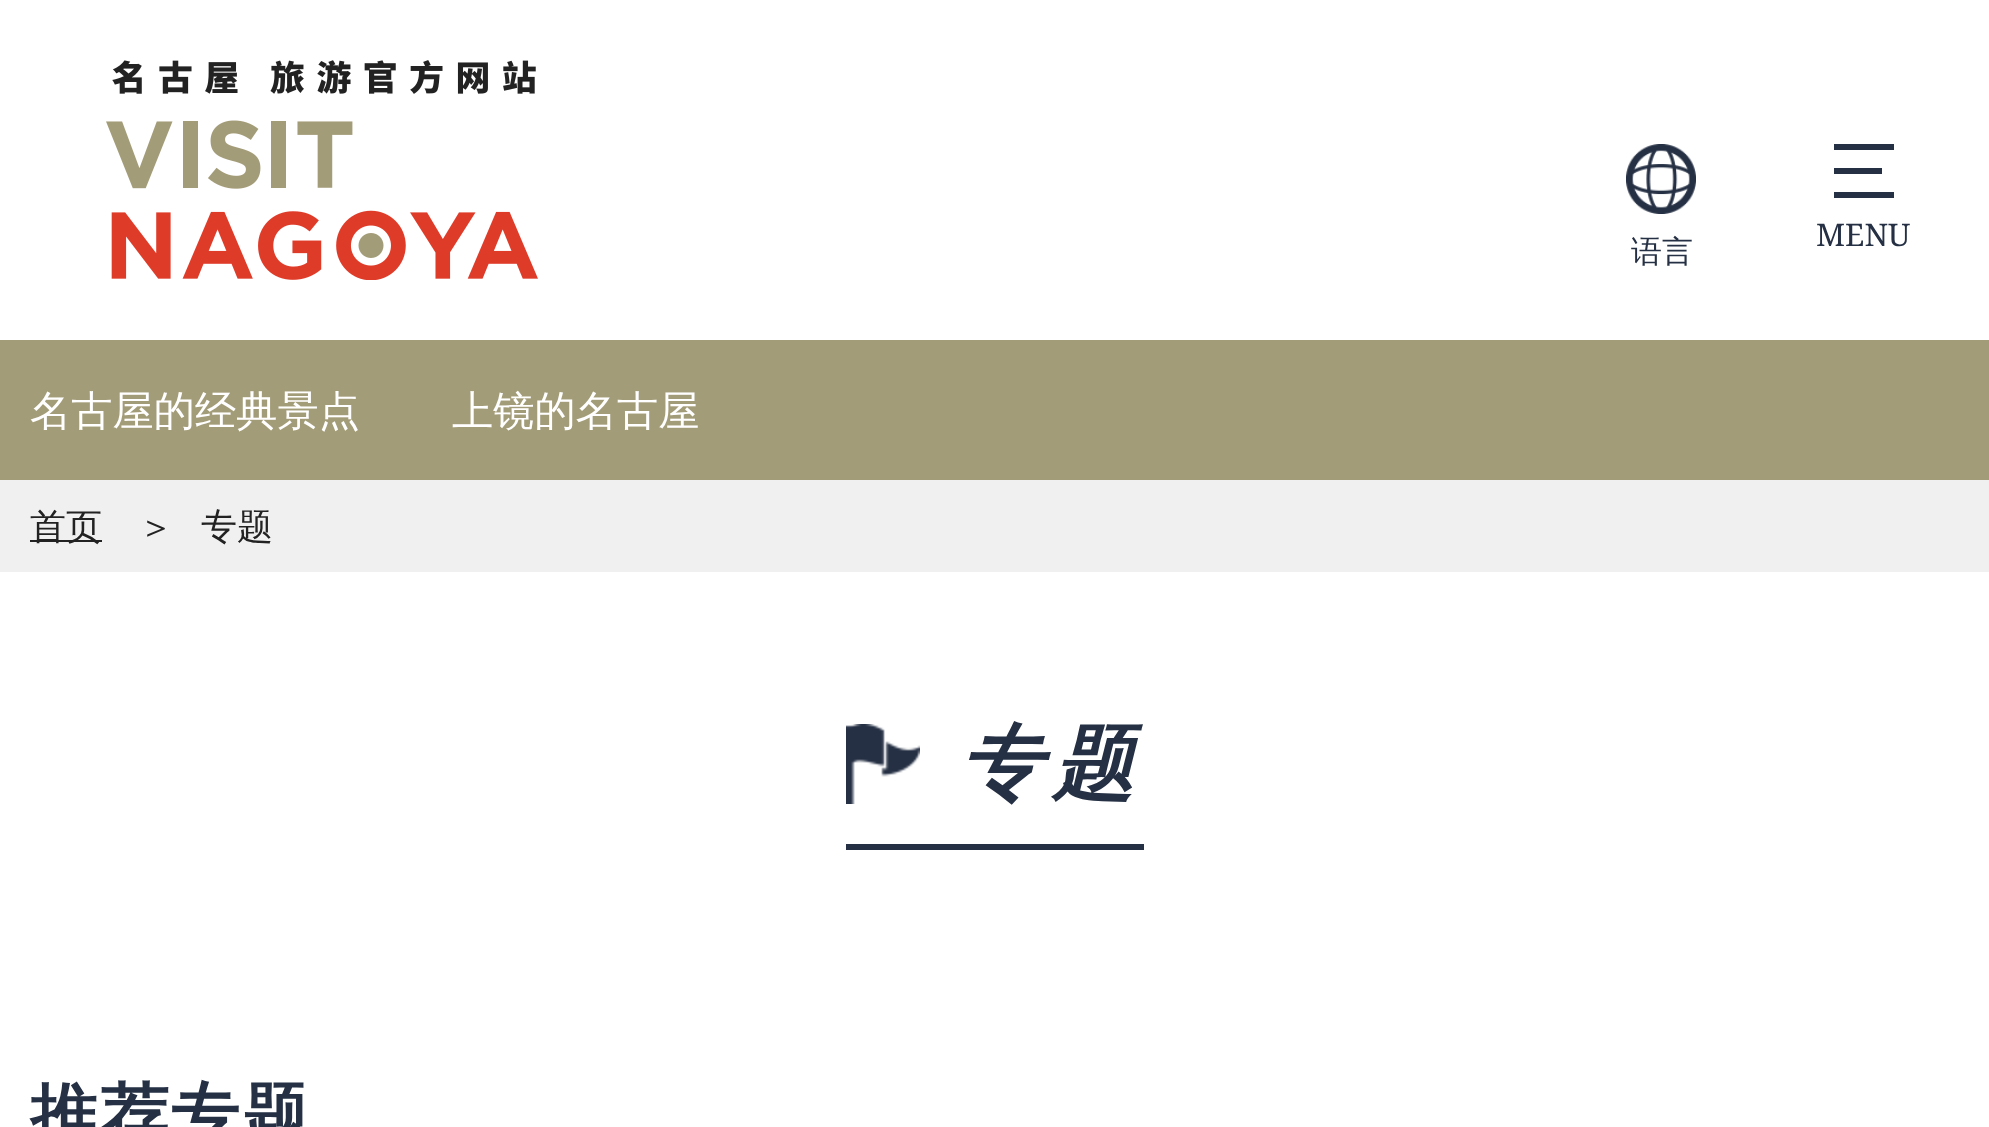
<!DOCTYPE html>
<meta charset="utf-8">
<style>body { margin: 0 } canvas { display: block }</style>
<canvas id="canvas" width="1989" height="1127"></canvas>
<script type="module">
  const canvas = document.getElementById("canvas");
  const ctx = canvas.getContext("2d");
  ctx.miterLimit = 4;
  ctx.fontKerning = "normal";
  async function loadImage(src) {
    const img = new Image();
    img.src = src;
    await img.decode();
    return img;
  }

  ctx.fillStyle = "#ffffff";
  ctx.fillRect(0, 0, 1989, 1127);
  ctx.drawImage(await loadImage("img1.png"), 106, 60, 432, 220);
  ctx.drawImage(await loadImage("img2.png"), 1626, 144, 70, 70);
  ctx.font = "500 31px WenQuanYi Zen Hei";
  ctx.fillStyle = "#253044";
  ctx.fillText("语言", 1631, 262);
  ctx.fillRect(1834, 144, 60, 6);
  ctx.fillRect(1834, 168, 48, 6);
  ctx.fillRect(1834, 192, 60, 6);
  ctx.font = "31px Noto Serif";
  ctx.fillText("MENU", 1816, 246);
  ctx.fillStyle = "#a39c78";
  ctx.fillRect(0, 340, 1989, 140);
  ctx.font = "500 41.25px WenQuanYi Zen Hei";
  ctx.fillStyle = "#ffffff";
  ctx.fillText("名古屋的经典景点", 30, 425);
  ctx.fillText("上镜的名古屋", 452, 425);
  ctx.fillStyle = "#f0f0f0";
  ctx.fillRect(0, 480, 1989, 92);
  ctx.fillStyle = "#222222";
  ctx.fillRect(30, 540, 72, 2);
  ctx.font = "500 36px WenQuanYi Zen Hei";
  ctx.fillText("首页", 30, 539);
  ctx.fillText("＞", 138, 539);
  ctx.fillText("专题", 201, 539);
  ctx.fillStyle = "#253044";
  ctx.fillRect(846, 844, 298, 6);
  ctx.drawImage(await loadImage("img3.png"), 846, 724, 74, 80);
  ctx.letterSpacing = "10px";
  ctx.font = "italic bold 82px WenQuanYi Zen Hei";
  ctx.fillText("专题", 960, 792);
  ctx.letterSpacing = "2px";
  ctx.font = "bold 68.5px WenQuanYi Zen Hei";
  ctx.fillText("推荐专题", 30, 1139);
</script>
